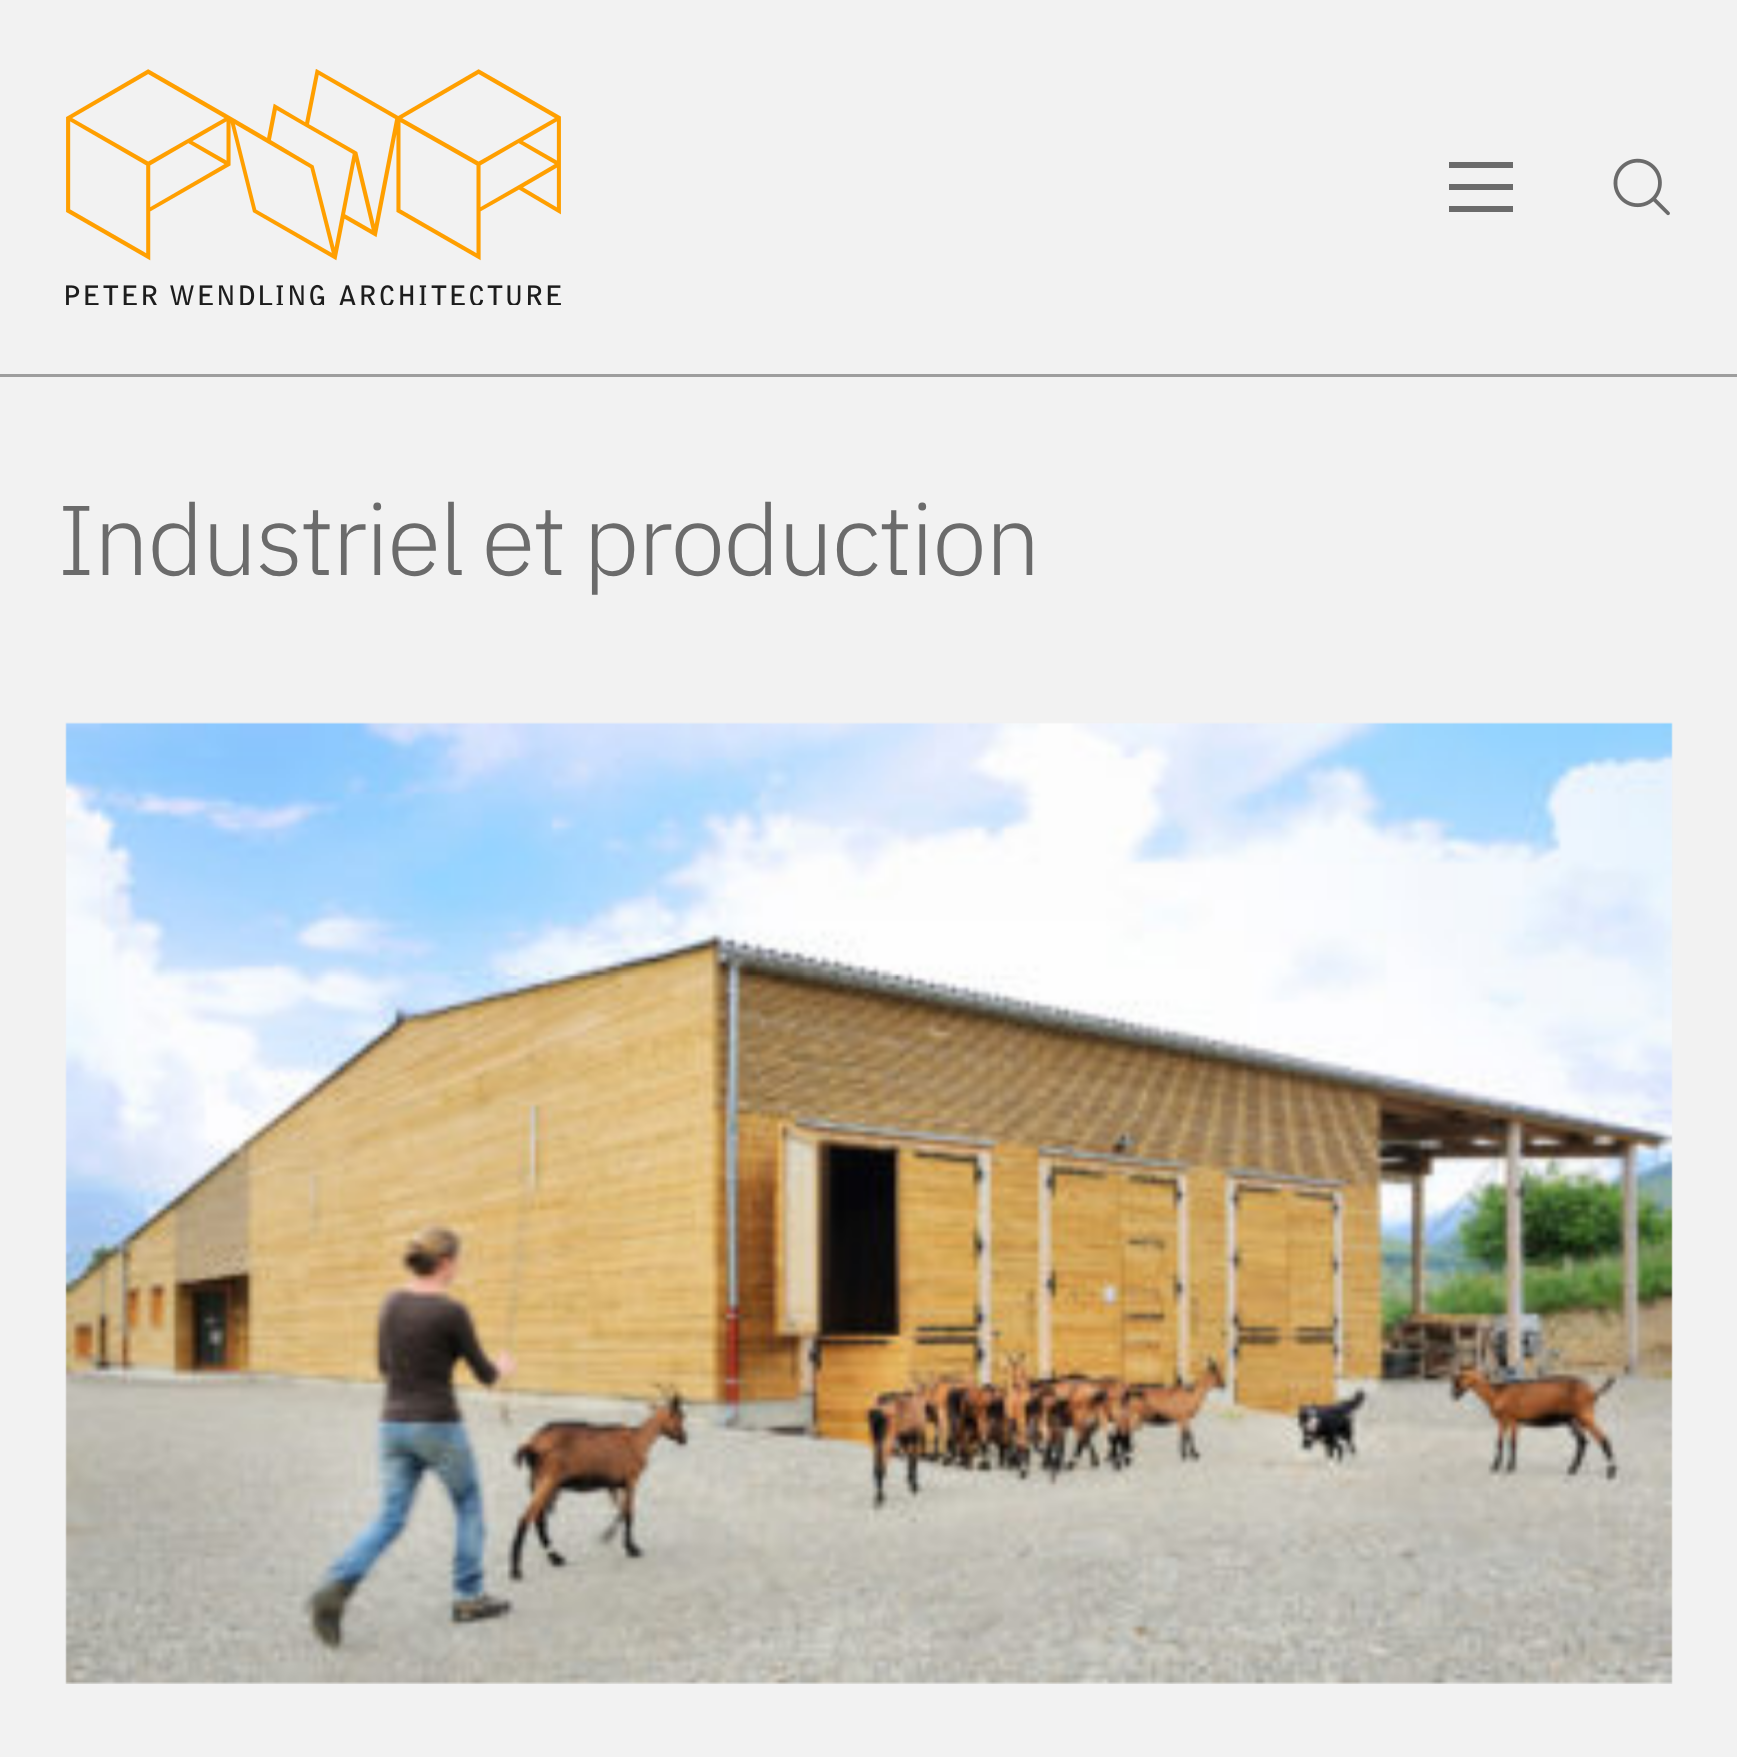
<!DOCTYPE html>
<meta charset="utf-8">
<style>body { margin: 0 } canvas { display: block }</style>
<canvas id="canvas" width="1737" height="1757"></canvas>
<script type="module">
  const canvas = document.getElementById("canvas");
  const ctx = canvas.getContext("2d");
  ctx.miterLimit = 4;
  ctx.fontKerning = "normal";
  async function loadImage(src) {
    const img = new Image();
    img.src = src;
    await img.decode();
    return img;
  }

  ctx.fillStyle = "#f2f2f2";
  ctx.fillRect(0, 0, 1737, 1757);
  ctx.fillStyle = "#9e9e9e";
  ctx.fillRect(0, 374, 1737, 3);
  ctx.drawImage(await loadImage("img1.png"), 66, 69, 495, 236);
  ctx.fillStyle = "#6b6b6b";
  ctx.fillRect(1449, 162, 64, 6);
  ctx.fillRect(1449, 184, 64, 6);
  ctx.fillRect(1449, 206, 64, 6);
  ctx.drawImage(await loadImage("img2.png"), 1613, 158, 57, 58);
  ctx.letterSpacing = "-2px";
  ctx.wordSpacing = "-3px";
  ctx.font = "300 99px IBM Plex Sans";
  ctx.fillText("Industriel et production", 57, 575);
  ctx.drawImage(await loadImage("img3.png"), 65, 722, 1608, 962);
</script>
